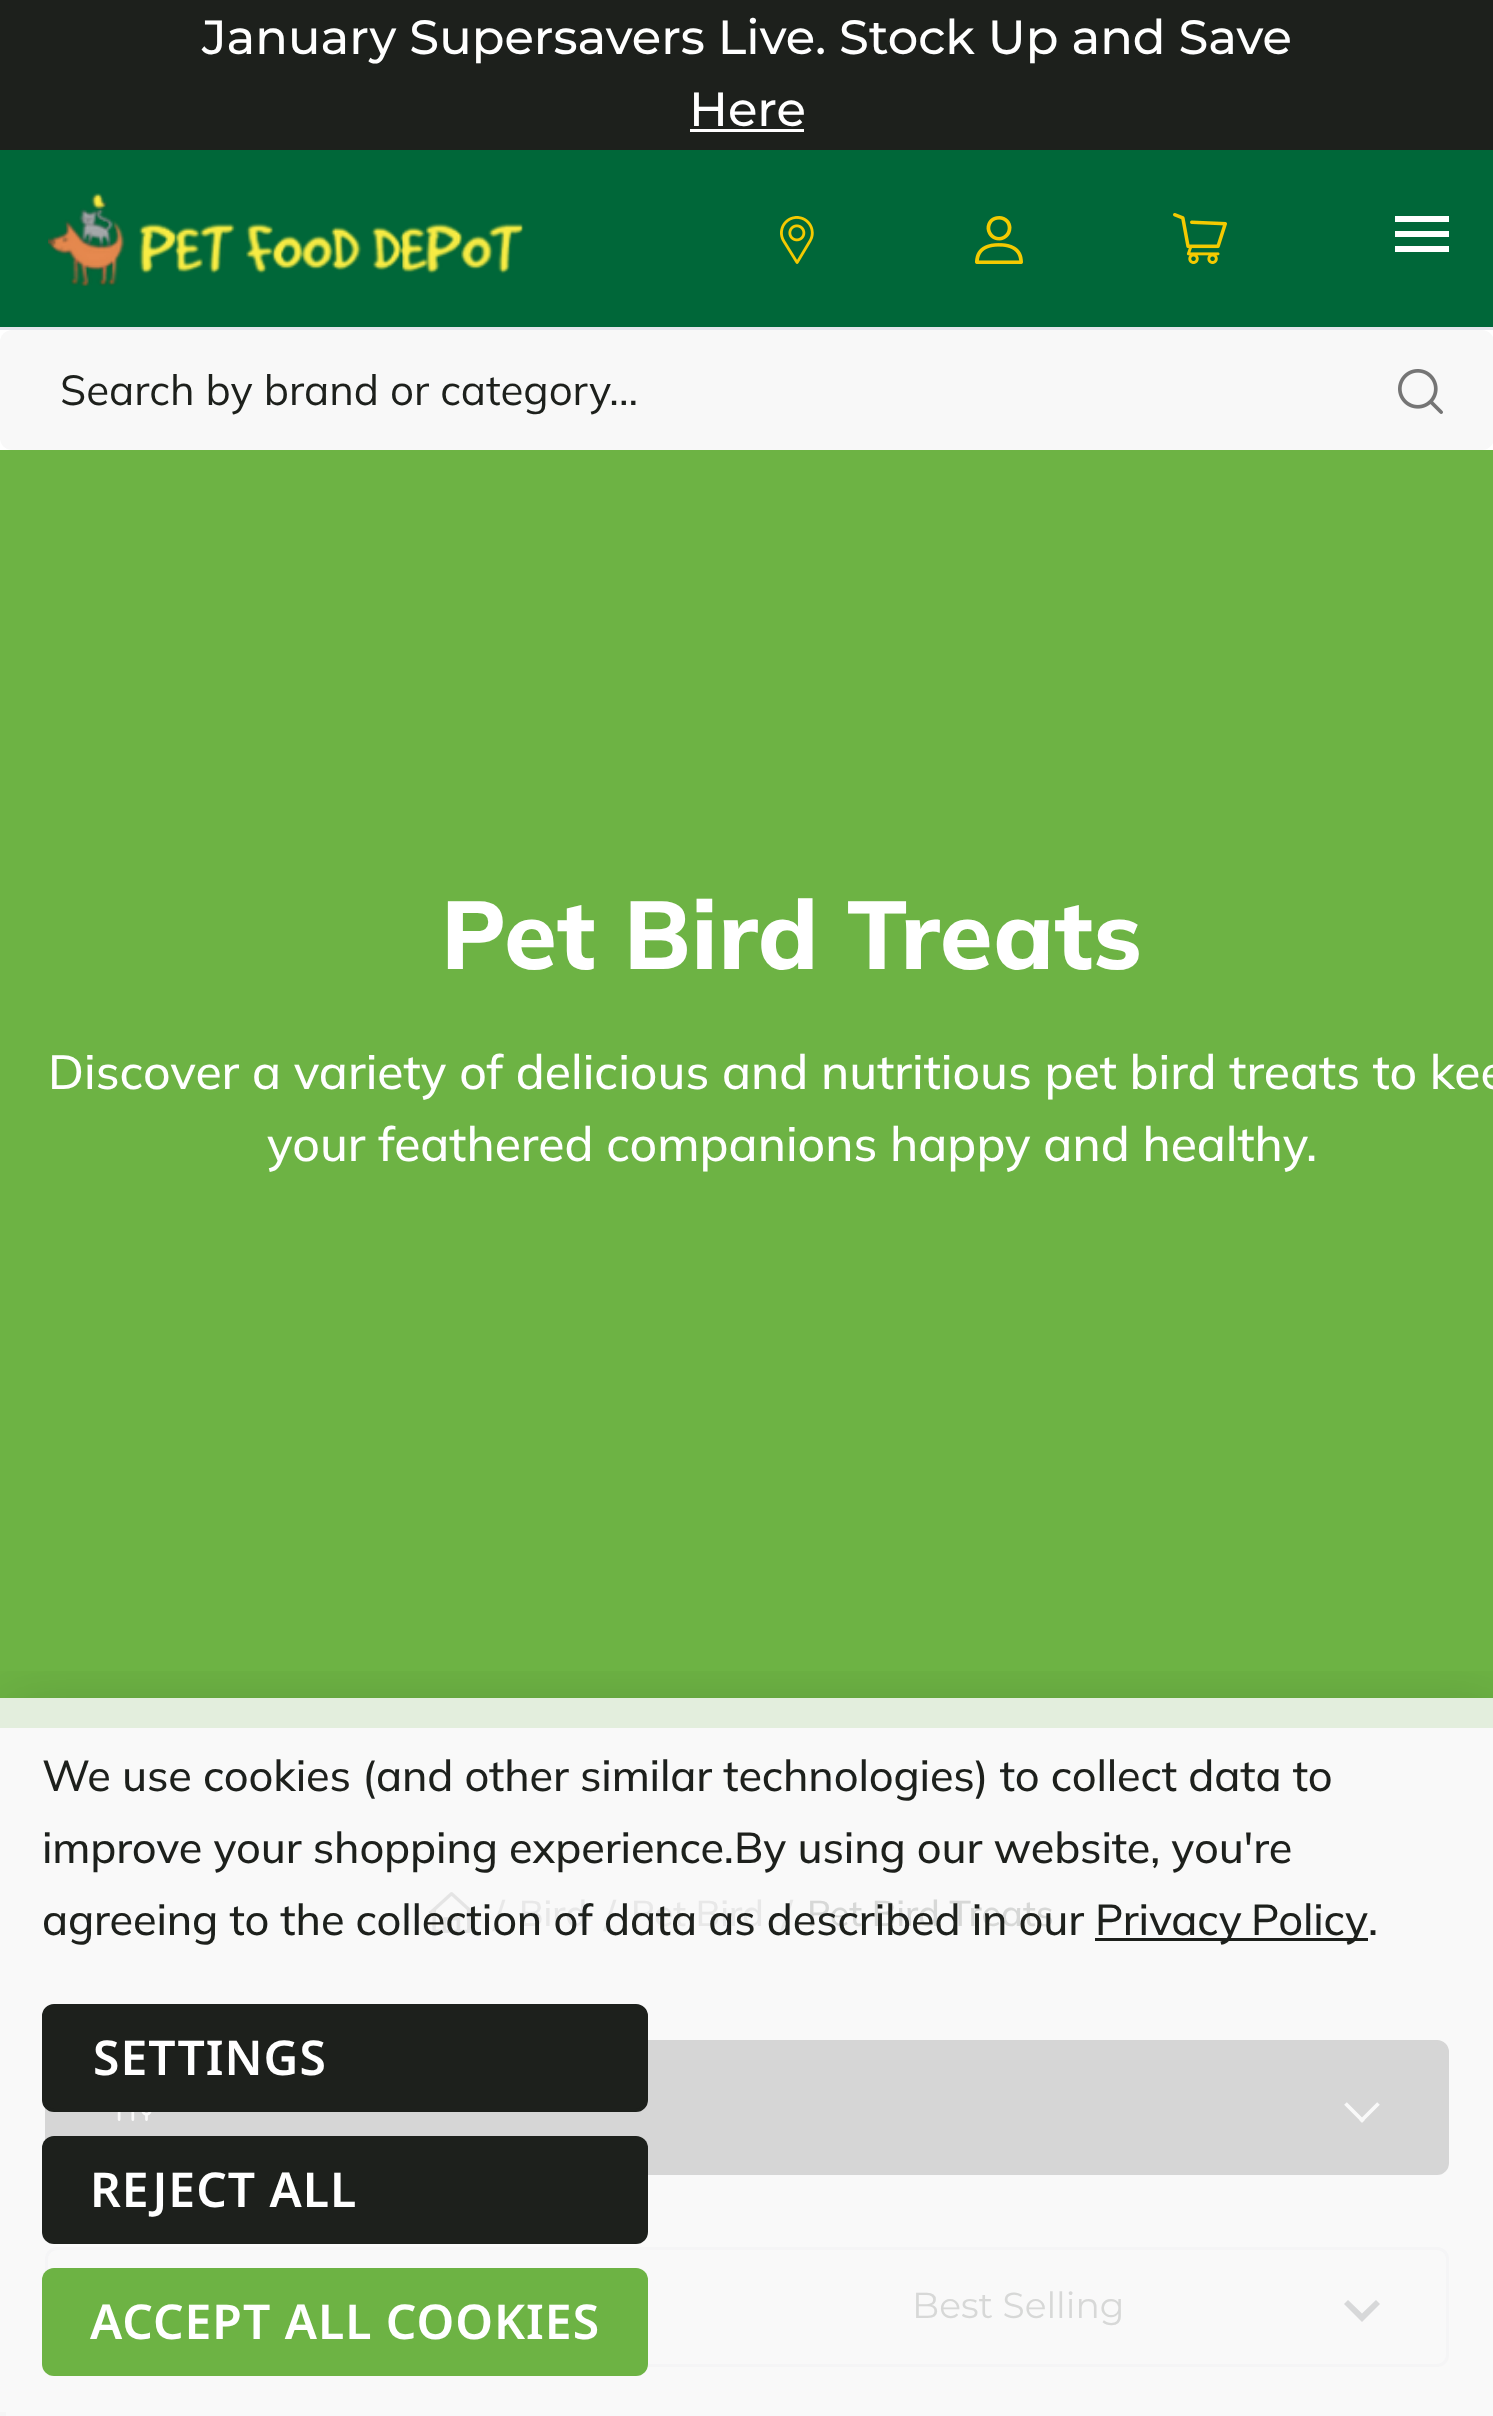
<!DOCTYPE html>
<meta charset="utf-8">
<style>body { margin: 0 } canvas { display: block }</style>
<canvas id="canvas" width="1493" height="2416"></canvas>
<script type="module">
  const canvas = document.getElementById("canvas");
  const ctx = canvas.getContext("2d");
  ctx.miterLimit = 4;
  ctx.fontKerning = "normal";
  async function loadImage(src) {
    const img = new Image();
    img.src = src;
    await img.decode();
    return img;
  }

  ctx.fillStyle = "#f9f9f9";
  ctx.fillRect(0, 0, 1493, 2416);
  ctx.fillStyle = "#1d201c";
  ctx.fillRect(0, 0, 1493, 150);
  ctx.font = "500 48px Montserrat";
  ctx.fillStyle = "#ffffff";
  ctx.fillText("January Supersavers Live. Stock Up and Save", 202, 54);
  ctx.fillText("Here", 689, 126);
  ctx.fillRect(690, 129, 114, 3);
  ctx.fillStyle = "#006739";
  ctx.fillRect(0, 150, 1493, 177);
  ctx.fillStyle = "#e4e6ec";
  ctx.fillRect(0, 327, 1493, 3);
  ctx.drawImage(await loadImage("img1.png"), 48, 193, 476, 94);
  ctx.drawImage(await loadImage("img2.png"), 780, 216, 34, 48);
  ctx.drawImage(await loadImage("img3.png"), 975, 216, 48, 48);
  ctx.drawImage(await loadImage("img4.png"), 1173, 213, 54, 51);
  ctx.fillStyle = "#ffffff";
  ctx.fillRect(1395, 231, 54, 6);
  ctx.fillRect(1395, 216, 54, 6);
  ctx.fillRect(1395, 246, 54, 6);
  ctx.fillRect(0, 330, 1493, 120);
  ctx.fillStyle = "#f8f8f8";
  ctx.beginPath();
  ctx.roundRect(0, 330, 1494, 120, 12);
  ctx.fill();
  ctx.font = "42px Mulish";
  ctx.fillStyle = "#1d201c";
  ctx.fillText("Search by brand or category...", 60, 405);
  ctx.drawImage(await loadImage("img5.png"), 1398, 369, 45, 45);
  ctx.fillStyle = "#6db344";
  ctx.fillRect(0, 450, 1493, 1248);
  ctx.fillStyle = "#e3eedd";
  ctx.fillRect(0, 1698, 1493, 30);
  ctx.letterSpacing = "0.75px";
  ctx.font = "800 96px Mulish";
  ctx.fillStyle = "#ffffff";
  ctx.fillText("Pet Bird Treats", 441, 969);
  ctx.letterSpacing = "0px";
  ctx.font = "500 48px Mulish";
  ctx.fillText("Discover a variety of delicious and nutritious pet bird treats to kee", 48, 1089);
  ctx.fillText("your feathered companions happy and healthy.", 267, 1161);
  ctx.drawImage(await loadImage("img6.png"), 429, 1892, 45, 41);
  ctx.font = "500 39px Mulish";
  ctx.fillStyle = "#e8e8e8";
  ctx.fillText("/", 493, 1929);
  ctx.font = "500 36px Mulish";
  ctx.fillText("Bird", 519, 1926);
  ctx.font = "500 39px Mulish";
  ctx.fillText("/", 604, 1929);
  ctx.font = "500 36px Mulish";
  ctx.fillText("Pet Bird", 631, 1926);
  ctx.font = "500 39px Mulish";
  ctx.fillText("/", 781, 1929);
  ctx.font = "500 36px Mulish";
  ctx.fillStyle = "#d7d8d7";
  ctx.fillText("Pet Bird Treats", 807, 1926);
  ctx.fillStyle = "#d6d6d6";
  ctx.beginPath();
  ctx.roundRect(46.5, 2041.5, 1401, 132, 10.5);
  ctx.fill();
  ctx.strokeStyle = "#d6d6d6";
  ctx.lineWidth = 3;
  ctx.stroke();
  ctx.drawImage(await loadImage("img7.png"), 117, 2112, 35, 9);
  ctx.beginPath();
  ctx.moveTo(1345.5, 2103.5);
  ctx.lineTo(1363.5, 2121.5);
  ctx.moveTo(1378.5, 2103.5);
  ctx.lineTo(1360.5, 2121.5);
  ctx.strokeStyle = "#f9f9f9";
  ctx.lineWidth = 3.8;
  ctx.stroke();
  ctx.beginPath();
  ctx.roundRect(46.5, 2248.5, 1401, 117, 10.5);
  ctx.strokeStyle = "#f5f5f6";
  ctx.lineWidth = 3;
  ctx.stroke();
  ctx.fillStyle = "#d7d8d9";
  ctx.beginPath();
  ctx.moveTo(1376, 2300);
  ctx.lineTo(1362, 2313.5);
  ctx.lineTo(1348, 2300);
  ctx.lineTo(1344, 2304);
  ctx.lineTo(1362, 2322);
  ctx.lineTo(1380, 2304);
  ctx.closePath();
  ctx.fill();
  ctx.font = "36px Montserrat";
  ctx.fillStyle = "#d7d8d7";
  ctx.fillText("Best Selling", 912, 2318);
  ctx.save();
  ctx.beginPath();
  ctx.rect(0, 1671, 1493, 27);
  ctx.clip();
  ctx.fillStyle = "rgba(0, 0, 0, 0.15)";
  ctx.filter = "blur(30px)";
  ctx.beginPath();
  ctx.rect(6, 1704, 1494, 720);
  ctx.fill();
  ctx.filter = "none";
  ctx.restore();
  ctx.letterSpacing = "-0.15px";
  ctx.font = "500 43.2px Mulish";
  ctx.fillStyle = "#1d201c";
  ctx.fillText("We use cookies (and other similar technologies) to collect data to", 42, 1791);
  ctx.fillText("improve your shopping experience.", 42, 1863);
  ctx.fillText("By using our website, you're", 734, 1863);
  ctx.fillText("agreeing to the collection of data as described in our", 42, 1935);
  ctx.fillRect(1095, 1938, 273, 3);
  ctx.wordSpacing = "-2px";
  ctx.fillText("Privacy Policy", 1095, 1935);
  ctx.wordSpacing = "0px";
  ctx.fillText(".", 1368, 1935);
  ctx.beginPath();
  ctx.roundRect(43.5, 2005.5, 603, 105, 10.5);
  ctx.fill();
  ctx.strokeStyle = "#1d201c";
  ctx.stroke();
  ctx.letterSpacing = "1px";
  ctx.font = "600 48px Noto Sans";
  ctx.fillStyle = "#ffffff";
  ctx.fillText("SETTINGS", 93, 2075);
  ctx.fillStyle = "#1d201c";
  ctx.beginPath();
  ctx.roundRect(42, 2136, 606, 108, 12);
  ctx.fill();
  ctx.fillStyle = "#ffffff";
  ctx.fillText("REJECT ALL", 90, 2207);
  ctx.fillStyle = "#6db344";
  ctx.beginPath();
  ctx.roundRect(42, 2268, 606, 108, 12);
  ctx.fill();
  ctx.fillStyle = "#ffffff";
  ctx.fillText("ACCEPT ALL COOKIES", 90, 2339);
  ctx.fillStyle = "#f5f5f5";
  ctx.fillRect(0, 2412, 6, 4);
</script>
